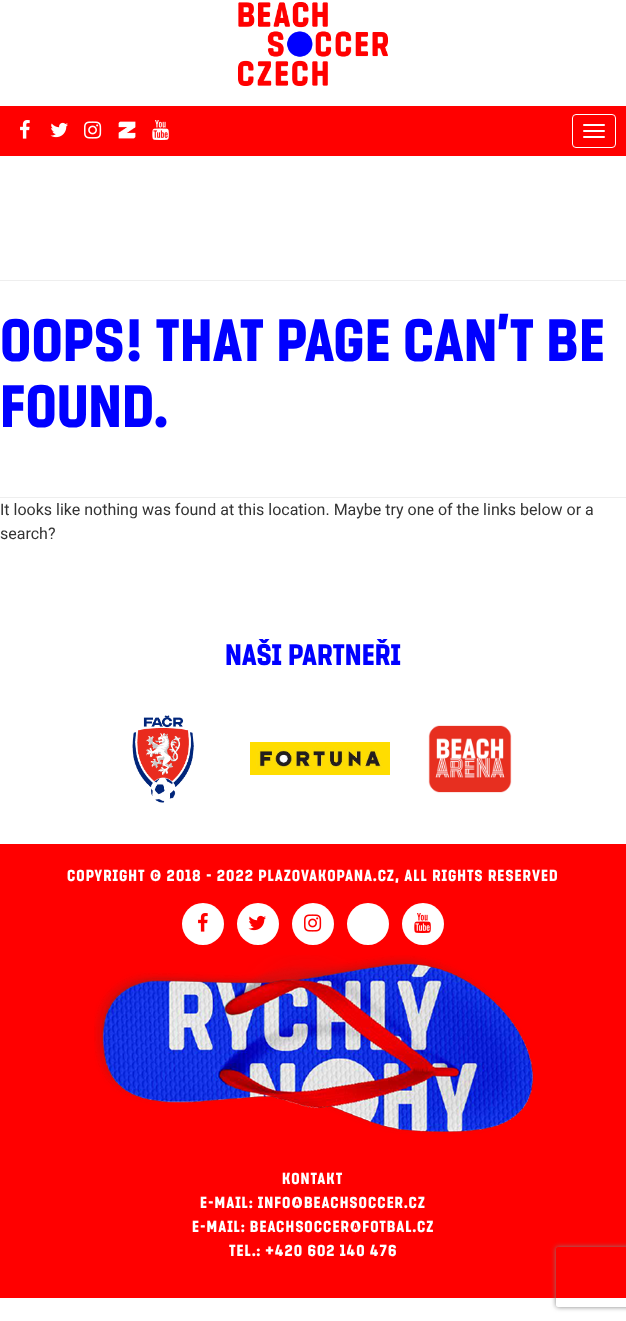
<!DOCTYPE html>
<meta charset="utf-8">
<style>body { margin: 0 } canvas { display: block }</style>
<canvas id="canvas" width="626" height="1321"></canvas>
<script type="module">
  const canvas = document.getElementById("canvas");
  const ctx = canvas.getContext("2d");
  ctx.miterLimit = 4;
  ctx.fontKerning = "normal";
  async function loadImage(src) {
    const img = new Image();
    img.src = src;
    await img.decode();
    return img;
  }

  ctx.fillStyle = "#ffffff";
  ctx.fillRect(0, 0, 626, 1321);
  ctx.drawImage(await loadImage("img1.png"), 238, 2, 150, 84);
  ctx.fillStyle = "#ff0000";
  ctx.fillRect(0, 106, 626, 50);
  ctx.drawImage(await loadImage("img2.png"), 20, 120, 10, 19);
  ctx.drawImage(await loadImage("img3.png"), 50, 122, 18, 16);
  ctx.drawImage(await loadImage("img4.png"), 84, 121, 18, 18);
  ctx.drawImage(await loadImage("img5.png"), 118, 121, 18, 18);
  ctx.drawImage(await loadImage("img6.png"), 152, 120, 17, 20);
  ctx.beginPath();
  ctx.roundRect(572.5, 114.5, 43, 33, 3.5);
  ctx.strokeStyle = "#ffffff";
  ctx.stroke();
  ctx.fillStyle = "#ffffff";
  ctx.beginPath();
  ctx.roundRect(583, 124, 22, 2, 1);
  ctx.fill();
  ctx.beginPath();
  ctx.roundRect(583, 130, 22, 2, 1);
  ctx.fill();
  ctx.beginPath();
  ctx.roundRect(583, 136, 22, 2, 1);
  ctx.fill();
  ctx.fillStyle = "#eeeeee";
  ctx.fillRect(0, 280, 626, 1);
  ctx.fillRect(0, 497, 626, 1);
  ctx.font = "60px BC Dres";
  ctx.fillStyle = "#0000ff";
  ctx.fillText("OOPS! THAT PAGE CAN’T BE", 0, 361);
  ctx.fillText("FOUND.", 0, 427);
  ctx.font = "16px Roboto";
  ctx.fillStyle = "#333333";
  ctx.fillText("It looks like nothing was found at this location. Maybe try one of the links below or a", 0, 515);
  ctx.fillText("search?", 0, 539);
  ctx.font = "30px BC Dres";
  ctx.fillStyle = "#0000ff";
  ctx.fillText("NAŠI PARTNEŘI", 225, 665);
  ctx.drawImage(await loadImage("img7.png"), 132, 715, 62, 88);
  ctx.drawImage(await loadImage("img8.png"), 250, 742, 140, 33);
  ctx.drawImage(await loadImage("img9.png"), 428, 725, 84, 68);
  ctx.fillStyle = "#ff0000";
  ctx.fillRect(0, 844, 626, 454);
  ctx.letterSpacing = "1px";
  ctx.font = "16px BC Dres";
  ctx.fillStyle = "#ffffff";
  ctx.fillText("COPYRIGHT © 2018 - 2022 PLAZOVAKOPANA.CZ, ALL RIGHTS RESERVED", 67, 881);
  ctx.beginPath();
  ctx.arc(203, 924, 21, 0, Math.PI * 2);
  ctx.fill();
  ctx.drawImage(await loadImage("img10.png"), 198, 913, 10, 19);
  ctx.beginPath();
  ctx.arc(258, 924, 21, 0, Math.PI * 2);
  ctx.fill();
  ctx.drawImage(await loadImage("img11.png"), 248, 915, 18, 16);
  ctx.beginPath();
  ctx.arc(313, 924, 21, 0, Math.PI * 2);
  ctx.fill();
  ctx.drawImage(await loadImage("img12.png"), 304, 914, 18, 18);
  ctx.beginPath();
  ctx.arc(368, 924, 21, 0, Math.PI * 2);
  ctx.fill();
  ctx.beginPath();
  ctx.arc(423, 924, 21, 0, Math.PI * 2);
  ctx.fill();
  ctx.drawImage(await loadImage("img13.png"), 414, 913, 17, 20);
  ctx.drawImage(await loadImage("img14.png"), 94, 955, 440, 179);
  ctx.fillText("KONTAKT", 282, 1184);
  ctx.fillText("E-MAIL: INFO@BEACHSOCCER.CZ", 200, 1208);
  ctx.fillText("E-MAIL: BEACHSOCCER@FOTBAL.CZ", 192, 1232);
  ctx.fillText("TEL.: +420 602 140 476", 229, 1256);
  ctx.save();
  ctx.beginPath();
  ctx.moveTo(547, 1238);
  ctx.lineTo(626, 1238);
  ctx.lineTo(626, 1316);
  ctx.lineTo(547, 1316);
  ctx.closePath();
  ctx.moveTo(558, 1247);
  ctx.lineTo(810, 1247);
  ctx.bezierCurveTo(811, 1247, 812, 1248, 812, 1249);
  ctx.lineTo(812, 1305);
  ctx.bezierCurveTo(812, 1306, 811, 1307, 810, 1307);
  ctx.lineTo(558, 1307);
  ctx.bezierCurveTo(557, 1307, 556, 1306, 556, 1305);
  ctx.lineTo(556, 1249);
  ctx.bezierCurveTo(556, 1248, 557, 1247, 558, 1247);
  ctx.closePath();
  ctx.clip("evenodd");
  ctx.fillStyle = "#808080";
  ctx.filter = "blur(2.5px)";
  ctx.beginPath();
  ctx.roundRect(556, 1247, 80, 60, 2);
  ctx.fill();
  ctx.filter = "none";
  ctx.restore();
</script>
